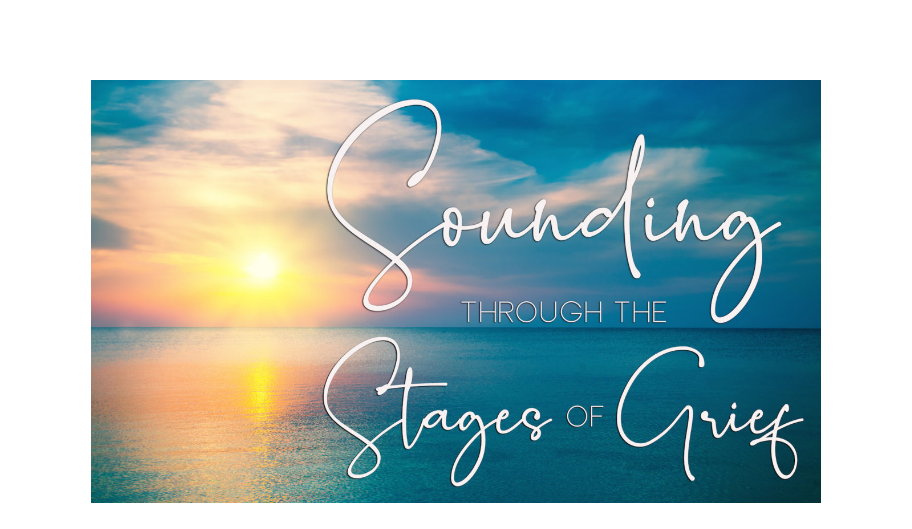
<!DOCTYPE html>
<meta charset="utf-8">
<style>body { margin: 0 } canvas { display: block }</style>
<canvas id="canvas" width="912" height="529"></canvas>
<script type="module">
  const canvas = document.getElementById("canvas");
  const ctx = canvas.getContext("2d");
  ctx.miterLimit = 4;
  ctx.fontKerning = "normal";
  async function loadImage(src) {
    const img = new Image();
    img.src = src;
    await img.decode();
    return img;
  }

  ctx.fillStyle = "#ffffff";
  ctx.fillRect(0, 0, 912, 529);
  ctx.drawImage(await loadImage("img1.png"), 91, 80, 730, 423);
</script>
